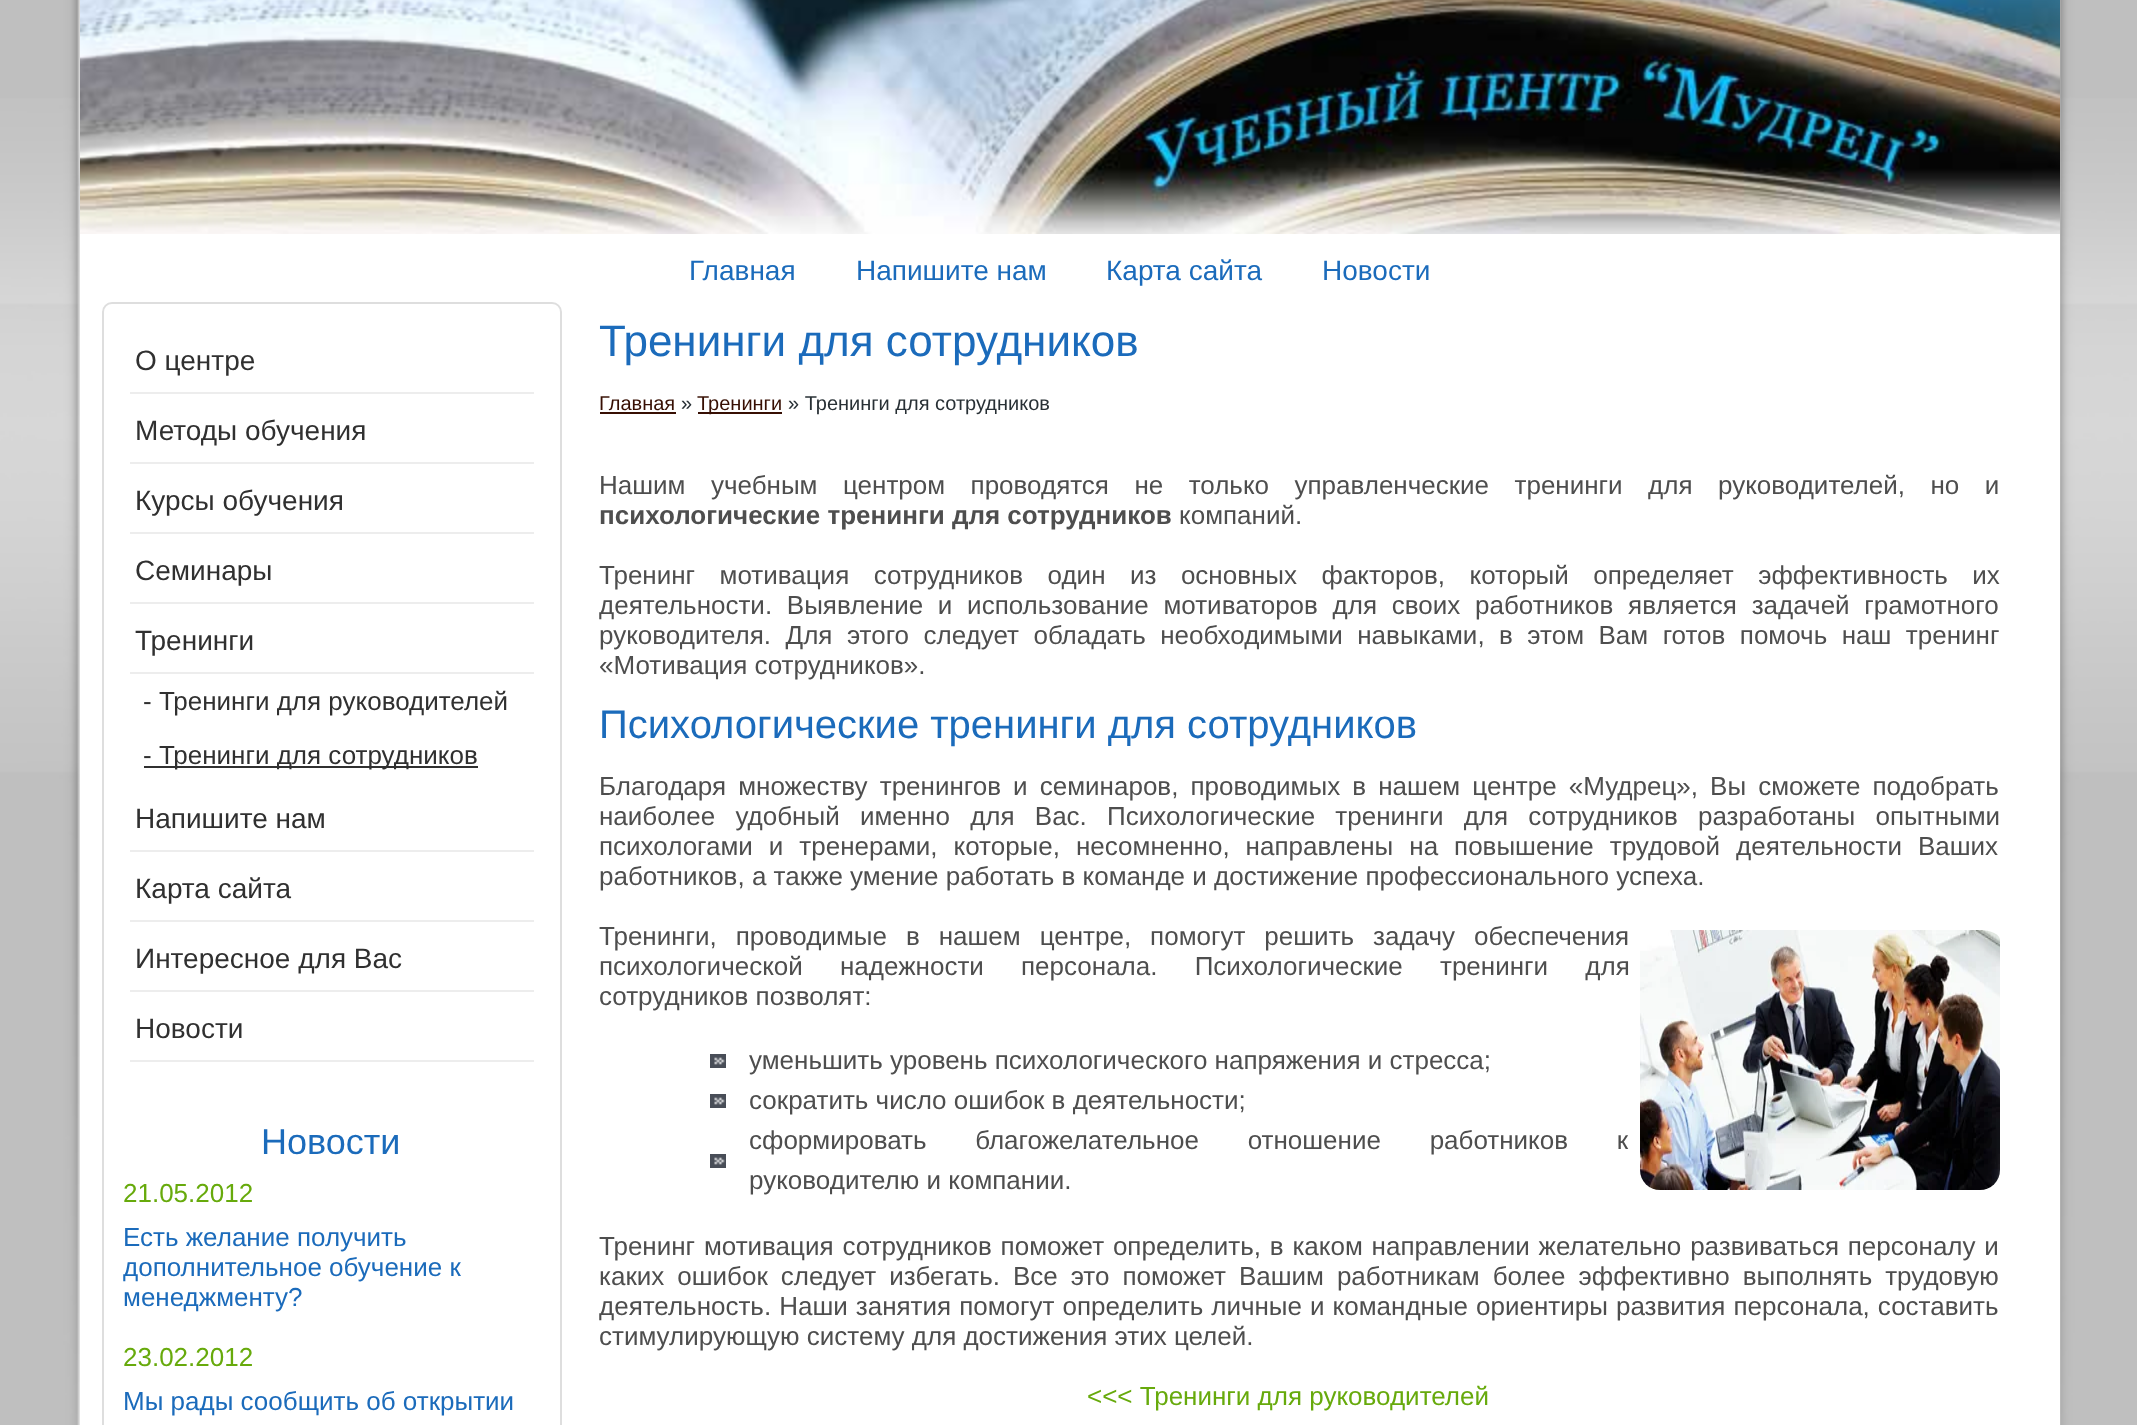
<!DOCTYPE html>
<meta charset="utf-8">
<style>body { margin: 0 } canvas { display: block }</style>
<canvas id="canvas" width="2137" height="1425"></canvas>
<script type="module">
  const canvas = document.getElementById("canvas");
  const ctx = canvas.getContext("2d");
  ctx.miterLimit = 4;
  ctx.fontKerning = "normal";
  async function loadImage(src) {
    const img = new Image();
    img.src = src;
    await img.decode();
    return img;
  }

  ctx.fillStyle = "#ffffff";
  ctx.fillRect(0, 0, 2137, 1425);
  ctx.drawImage(await loadImage("img1.png"), 0, 0, 2137, 1425);
  ctx.fillRect(80, 234, 1980, 1191);
  ctx.drawImage(await loadImage("img2.png"), 80, 0, 1980, 234);
  ctx.font = "28px Liberation Sans";
  ctx.fillStyle = "#1b6bbb";
  ctx.fillText("Главная", 689, 280);
  ctx.fillText("Напишите нам", 856, 280);
  ctx.fillText("Карта сайта", 1106, 280);
  ctx.fillText("Новости", 1322, 280);
  ctx.beginPath();
  ctx.roundRect(103, 303, 458, 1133, 9);
  ctx.strokeStyle = "#dedede";
  ctx.lineWidth = 2;
  ctx.stroke();
  ctx.fillStyle = "#ededed";
  ctx.fillRect(130, 392, 404, 2);
  ctx.fillStyle = "#303030";
  ctx.fillText("О центре", 135, 370);
  ctx.fillStyle = "#ededed";
  ctx.fillRect(130, 462, 404, 2);
  ctx.fillStyle = "#303030";
  ctx.fillText("Методы обучения", 135, 440);
  ctx.fillStyle = "#ededed";
  ctx.fillRect(130, 532, 404, 2);
  ctx.fillStyle = "#303030";
  ctx.fillText("Курсы обучения", 135, 510);
  ctx.fillStyle = "#ededed";
  ctx.fillRect(130, 602, 404, 2);
  ctx.fillStyle = "#303030";
  ctx.fillText("Семинары", 135, 580);
  ctx.fillStyle = "#ededed";
  ctx.fillRect(130, 672, 404, 2);
  ctx.fillStyle = "#303030";
  ctx.fillText("Тренинги", 135, 650);
  ctx.font = "26px Liberation Sans";
  ctx.fillText("- Тренинги для руководителей", 143, 710);
  ctx.fillRect(144, 766, 334, 2);
  ctx.fillText("- Тренинги для сотрудников", 143, 764);
  ctx.fillStyle = "#ededed";
  ctx.fillRect(130, 850, 404, 2);
  ctx.font = "28px Liberation Sans";
  ctx.fillStyle = "#303030";
  ctx.fillText("Напишите нам", 135, 828);
  ctx.fillStyle = "#ededed";
  ctx.fillRect(130, 920, 404, 2);
  ctx.fillStyle = "#303030";
  ctx.fillText("Карта сайта", 135, 898);
  ctx.fillStyle = "#ededed";
  ctx.fillRect(130, 990, 404, 2);
  ctx.fillStyle = "#303030";
  ctx.fillText("Интересное для Вас", 135, 968);
  ctx.fillStyle = "#ededed";
  ctx.fillRect(130, 1060, 404, 2);
  ctx.fillStyle = "#303030";
  ctx.fillText("Новости", 135, 1038);
  ctx.font = "36px Liberation Sans";
  ctx.fillStyle = "#1b6bbb";
  ctx.fillText("Новости", 261, 1154);
  ctx.font = "26px Liberation Sans";
  ctx.fillStyle = "#67aa0c";
  ctx.fillText("21.05.2012", 123, 1202);
  ctx.fillStyle = "#1b6bbb";
  ctx.fillText("Есть желание получить", 123, 1246);
  ctx.fillText("дополнительное обучение к", 123, 1276);
  ctx.fillText("менеджменту?", 123, 1306);
  ctx.fillStyle = "#67aa0c";
  ctx.fillText("23.02.2012", 123, 1366);
  ctx.fillStyle = "#1b6bbb";
  ctx.fillText("Мы рады сообщить об открытии", 123, 1410);
  ctx.font = "44px Liberation Sans";
  ctx.fillText("Тренинги для сотрудников", 599, 356);
  ctx.font = "20px Liberation Sans";
  ctx.fillStyle = "#370f03";
  ctx.fillText("Главная", 599, 410);
  ctx.fillRect(600, 412, 76, 2);
  ctx.fillStyle = "#283035";
  ctx.fillText("»", 681, 410);
  ctx.fillStyle = "#370f03";
  ctx.fillRect(698, 412, 84, 2);
  ctx.fillText("Тренинги", 697, 410);
  ctx.fillStyle = "#283035";
  ctx.fillText("» Тренинги для сотрудников", 788, 410);
  ctx.wordSpacing = "18.25px";
  ctx.font = "26px Liberation Sans";
  ctx.fillStyle = "#4e4e4e";
  ctx.fillText("Нашим учебным центром проводятся не только управленческие тренинги для руководителей, но и", 599, 494);
  ctx.wordSpacing = "0px";
  ctx.font = "bold 26px Liberation Sans";
  ctx.fillText("психологические тренинги для сотрудников", 599, 524);
  ctx.font = "26px Liberation Sans";
  ctx.fillText("компаний.", 1179, 524);
  ctx.wordSpacing = "17.25px";
  ctx.fillText("Тренинг мотивация сотрудников один из основных факторов, который определяет эффективность их", 599, 584);
  ctx.wordSpacing = "7.5px";
  ctx.fillText("деятельности. Выявление и использование мотиваторов для своих работников является задачей грамотного", 599, 614);
  ctx.wordSpacing = "7.25px";
  ctx.fillText("руководителя. Для этого следует обладать необходимыми навыками, в этом Вам готов помочь наш тренинг", 599, 644);
  ctx.wordSpacing = "0px";
  ctx.fillText("«Мотивация сотрудников».", 599, 674);
  ctx.font = "40px Liberation Sans";
  ctx.fillStyle = "#1b6bbb";
  ctx.fillText("Психологические тренинги для сотрудников", 599, 738);
  ctx.wordSpacing = "4.9px";
  ctx.font = "26px Liberation Sans";
  ctx.fillStyle = "#4e4e4e";
  ctx.fillText("Благодаря множеству тренингов и семинаров, проводимых в нашем центре «Мудрец», Вы сможете подобрать", 599, 795);
  ctx.wordSpacing = "13px";
  ctx.fillText("наиболее удобный именно для Вас. Психологические тренинги для сотрудников разработаны опытными", 599, 825);
  ctx.wordSpacing = "8.75px";
  ctx.fillText("психологами и тренерами, которые, несомненно, направлены на повышение трудовой деятельности Ваших", 599, 855);
  ctx.wordSpacing = "0px";
  ctx.fillText("работников, а также умение работать в команде и достижение профессионального успеха.", 599, 885);
  ctx.wordSpacing = "11.75px";
  ctx.fillText("Тренинги, проводимые в нашем центре, помогут решить задачу обеспечения", 599, 945);
  ctx.drawImage(await loadImage("img3.png"), 1640, 930, 360, 260);
  ctx.wordSpacing = "30px";
  ctx.fillText("психологической надежности персонала. Психологические тренинги для", 599, 975);
  ctx.wordSpacing = "0px";
  ctx.fillText("сотрудников позволят:", 599, 1005);
  ctx.drawImage(await loadImage("img4.png"), 710, 1054, 16, 14);
  ctx.fillText("уменьшить уровень психологического напряжения и стресса;", 749, 1069);
  ctx.drawImage(await loadImage("img4.png"), 710, 1094, 16, 14);
  ctx.fillText("сократить число ошибок в деятельности;", 749, 1109);
  ctx.drawImage(await loadImage("img4.png"), 710, 1154, 16, 14);
  ctx.wordSpacing = "41.5px";
  ctx.fillText("сформировать благожелательное отношение работников к", 749, 1149);
  ctx.wordSpacing = "0px";
  ctx.fillText("руководителю и компании.", 749, 1189);
  ctx.wordSpacing = "1.6px";
  ctx.fillText("Тренинг мотивация сотрудников поможет определить, в каком направлении желательно развиваться персоналу и", 599, 1255);
  ctx.wordSpacing = "5.75px";
  ctx.fillText("каких ошибок следует избегать. Все это поможет Вашим работникам более эффективно выполнять трудовую", 599, 1285);
  ctx.wordSpacing = "0.8px";
  ctx.fillText("деятельность. Наши занятия помогут определить личные и командные ориентиры развития персонала, составить", 599, 1315);
  ctx.wordSpacing = "0px";
  ctx.fillText("стимулирующую систему для достижения этих целей.", 599, 1345);
  ctx.fillStyle = "#67aa0c";
  ctx.fillText("<<< Тренинги для руководителей", 1087, 1405);
</script>
